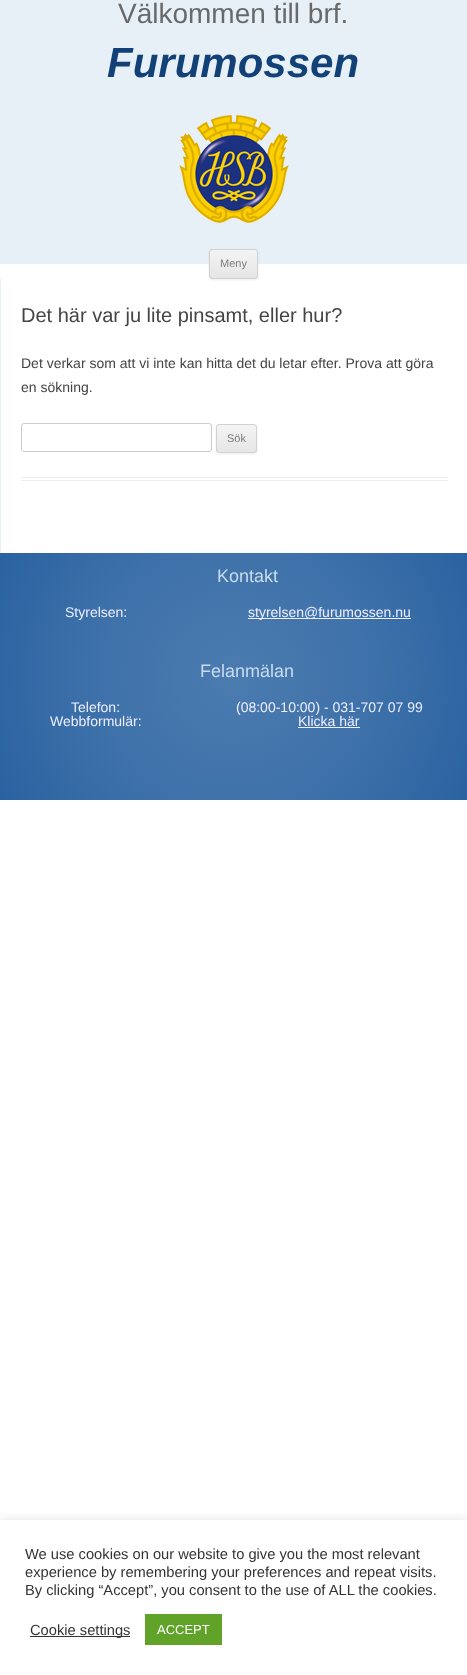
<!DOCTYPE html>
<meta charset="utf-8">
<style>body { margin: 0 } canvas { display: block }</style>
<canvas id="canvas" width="467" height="1675"></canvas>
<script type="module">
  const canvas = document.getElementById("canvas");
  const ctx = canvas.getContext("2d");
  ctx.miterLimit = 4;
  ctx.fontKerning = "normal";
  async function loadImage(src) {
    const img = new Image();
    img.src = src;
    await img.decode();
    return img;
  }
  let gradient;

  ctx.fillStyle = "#ffffff";
  ctx.fillRect(0, 0, 467, 1675);
  ctx.fillStyle = "#e7f0f7";
  ctx.fillRect(0, 0, 467, 264);
  ctx.font = "28px Liberation Sans";
  ctx.fillStyle = "#696969";
  ctx.fillText("Välkommen till brf.", 118, 23);
  ctx.font = "italic bold 42px Liberation Sans";
  ctx.fillStyle = "#114177";
  ctx.fillText("Furumossen", 107, 77);
  ctx.drawImage(await loadImage("img1.png"), 179, 115, 110, 108);
  ctx.fillStyle = "rgba(64, 64, 64, 0.1)";
  ctx.filter = "blur(1px)";
  ctx.beginPath();
  ctx.roundRect(209, 250, 49, 30, 3);
  ctx.fill();
  ctx.filter = "none";
  ctx.save();
  ctx.beginPath();
  ctx.roundRect(209, 249, 49, 30, 3);
  ctx.clip();
  gradient = ctx.createLinearGradient(234, 250, 234, 278);
  gradient.addColorStop(0, "#f4f4f4");
  gradient.addColorStop(1, "#e6e6e6");
  ctx.fillStyle = gradient;
  ctx.fillRect(209, 250, 49, 28);
  ctx.restore();
  ctx.beginPath();
  ctx.roundRect(209.5, 249.5, 48, 29, 2.5);
  ctx.strokeStyle = "#d2d2d2";
  ctx.stroke();
  ctx.font = "11px Liberation Sans";
  ctx.fillStyle = "#7c7c7c";
  ctx.fillText("Meny", 220, 267);
  ctx.fillStyle = "#e7f0f7";
  ctx.fillRect(0, 279, 1, 274);
  ctx.fillStyle = "#ededed";
  ctx.fillRect(21, 477, 427, 1);
  ctx.fillRect(21, 480, 427, 1);
  ctx.font = "20px Liberation Sans";
  ctx.fillStyle = "#444444";
  ctx.fillText("Det här var ju lite pinsamt, eller hur?", 21, 322);
  ctx.font = "14px Liberation Sans";
  ctx.fillText("Det verkar som att vi inte kan hitta det du letar efter. Prova att göra", 21, 368);
  ctx.fillText("en sökning.", 21, 392);
  ctx.beginPath();
  ctx.roundRect(21.5, 423.5, 190, 28, 2.5);
  ctx.strokeStyle = "#cccccc";
  ctx.stroke();
  ctx.fillStyle = "rgba(64, 64, 64, 0.1)";
  ctx.filter = "blur(1px)";
  ctx.beginPath();
  ctx.roundRect(216, 425, 41, 29, 3);
  ctx.fill();
  ctx.filter = "none";
  ctx.save();
  ctx.beginPath();
  ctx.roundRect(216, 424, 41, 29, 3);
  ctx.clip();
  gradient = ctx.createLinearGradient(237, 425, 237, 452);
  gradient.addColorStop(0, "#f4f4f4");
  gradient.addColorStop(1, "#e6e6e6");
  ctx.fillStyle = gradient;
  ctx.fillRect(216, 425, 41, 27);
  ctx.restore();
  ctx.beginPath();
  ctx.roundRect(216.5, 424.5, 40, 28, 2.5);
  ctx.strokeStyle = "#d2d2d2";
  ctx.stroke();
  ctx.font = "11px Liberation Sans";
  ctx.fillStyle = "#7c7c7c";
  ctx.fillText("Sök", 227, 442);
  gradient = ctx.createRadialGradient(234, 677, 0, 234, 677, 264);
  gradient.addColorStop(0, "#4b7baf");
  gradient.addColorStop(0.5, "#3f72aa");
  gradient.addColorStop(1, "#2a62a1");
  ctx.fillStyle = gradient;
  ctx.fillRect(0, 553, 467, 247);
  ctx.font = "18px Liberation Sans";
  ctx.fillStyle = "#c8dced";
  ctx.fillText("Kontakt", 217, 582);
  ctx.font = "14px Liberation Sans";
  ctx.fillStyle = "#eeeeff";
  ctx.fillText("Styrelsen:", 65, 617);
  ctx.fillRect(248, 618, 163, 1);
  ctx.fillText("styrelsen@furumossen.nu", 248, 617);
  ctx.font = "18px Liberation Sans";
  ctx.fillStyle = "#c8dced";
  ctx.fillText("Felanmälan", 200, 677);
  ctx.font = "14px Liberation Sans";
  ctx.fillStyle = "#eeeeff";
  ctx.fillText("Telefon:", 71, 712);
  ctx.fillText("(08:00-10:00) - 031-707 07 99", 236, 712);
  ctx.fillText("Webbformulär:", 50, 726);
  ctx.fillText("Klicka här", 298, 726);
  ctx.fillRect(298, 727, 62, 1);
  ctx.save();
  ctx.beginPath();
  ctx.rect(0, 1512, 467, 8);
  ctx.clip();
  ctx.fillStyle = "rgba(172, 171, 171, 0.3)";
  ctx.filter = "blur(5px)";
  ctx.beginPath();
  ctx.rect(0, 1519, 467, 155);
  ctx.fill();
  ctx.filter = "none";
  ctx.restore();
  ctx.font = "14.7px Liberation Sans";
  ctx.fillStyle = "#333333";
  ctx.fillText("We use cookies on our website to give you the most relevant", 25, 1559);
  ctx.fillText("experience by remembering your preferences and repeat visits.", 25, 1577);
  ctx.fillText("By clicking “Accept”, you consent to the use of ALL the cookies.", 25, 1595);
  ctx.fillRect(30, 1636, 100, 1);
  ctx.fillText("Cookie settings", 30, 1635);
  ctx.fillStyle = "#61a229";
  ctx.fillRect(145, 1614, 77, 31);
  ctx.font = "13px Liberation Sans";
  ctx.fillStyle = "#ffffff";
  ctx.fillText("ACCEPT", 157, 1634);
</script>
